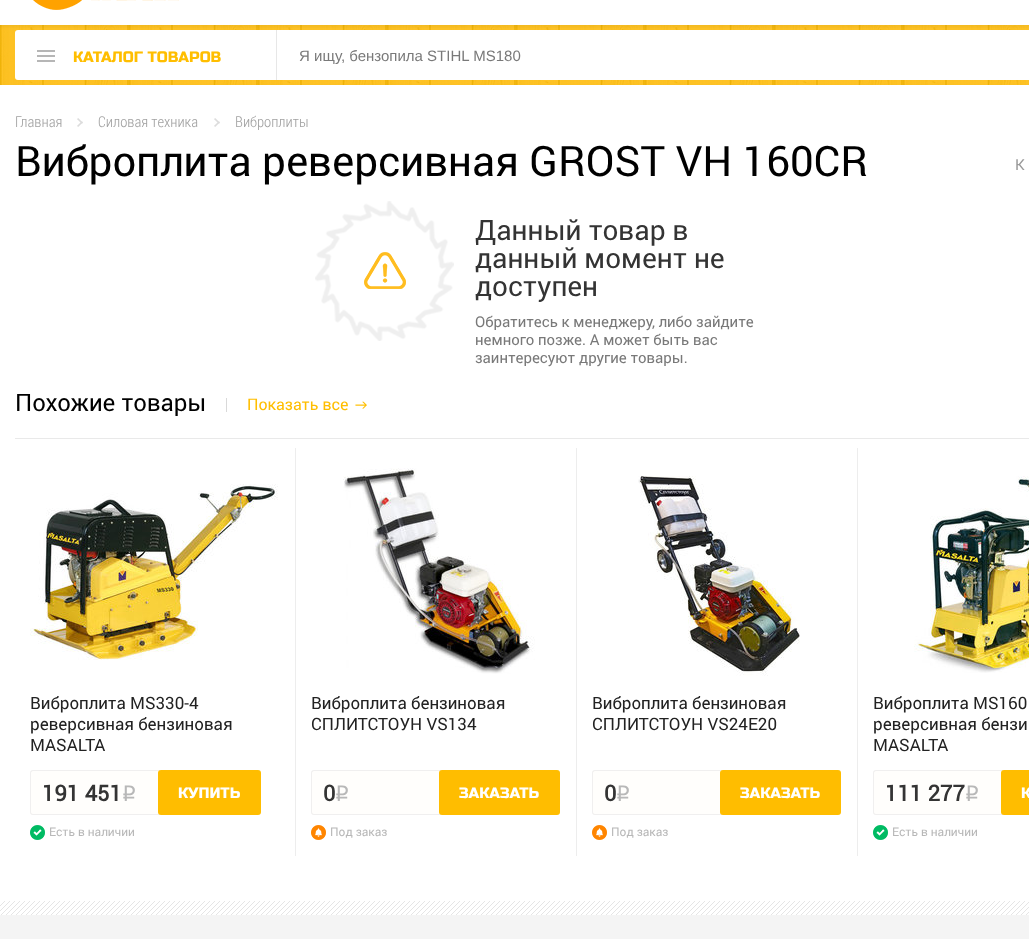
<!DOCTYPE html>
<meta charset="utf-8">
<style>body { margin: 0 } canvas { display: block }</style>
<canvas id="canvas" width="1029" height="939"></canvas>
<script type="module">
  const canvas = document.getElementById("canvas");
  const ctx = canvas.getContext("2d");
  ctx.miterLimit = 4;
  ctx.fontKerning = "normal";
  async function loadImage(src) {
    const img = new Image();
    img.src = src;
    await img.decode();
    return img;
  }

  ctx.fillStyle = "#ffffff";
  ctx.fillRect(0, 0, 1029, 939);
  ctx.drawImage(await loadImage("img1.png"), 33, 0, 146, 10);
  ctx.drawImage(await loadImage("img2.png"), 0, 25, 1029, 60);
  ctx.beginPath();
  ctx.roundRect(15, 30, 262, 50, [3, 0, 0, 3]);
  ctx.fill();
  ctx.fillStyle = "#e7e7e7";
  ctx.fillRect(276, 30, 1, 50);
  ctx.drawImage(await loadImage("img3.png"), 37, 50, 18, 12);
  ctx.font = "15px Russo One";
  ctx.fillStyle = "#ffbe00";
  ctx.fillText("КАТАЛОГ ТОВАРОВ", 73, 62);
  ctx.fillStyle = "#ffffff";
  ctx.fillRect(277, 30, 752, 50);
  ctx.font = "15px Liberation Sans";
  ctx.fillStyle = "#797979";
  ctx.fillText("Я ищу, бензопила STIHL MS180", 299, 61);
  ctx.font = "300 15px Roboto Condensed";
  ctx.fillStyle = "#a2a2a2";
  ctx.fillText("Главная", 15, 127);
  ctx.drawImage(await loadImage("img4.png"), 77, 118, 6, 9);
  ctx.fillText("Силовая техника", 98, 127);
  ctx.drawImage(await loadImage("img4.png"), 214, 118, 6, 9);
  ctx.fillText("Виброплиты", 235, 127);
  ctx.font = "42px Roboto";
  ctx.fillStyle = "#000000";
  ctx.fillText("Виброплита реверсивная GROST VH 160СR", 15, 176);
  ctx.font = "15px Roboto";
  ctx.fillStyle = "#999999";
  ctx.fillText("К", 1015, 170);
  ctx.drawImage(await loadImage("img5.png"), 315, 201, 139, 140);
  ctx.font = "28px Roboto";
  ctx.fillStyle = "#343434";
  ctx.fillText("Данный товар в", 475, 240);
  ctx.fillText("данный момент не", 475, 268);
  ctx.fillText("доступен", 475, 296);
  ctx.font = "15px Roboto";
  ctx.fillStyle = "#797979";
  ctx.fillText("Обратитесь к менеджеру, либо зайдите", 475, 327);
  ctx.fillText("немного позже. А может быть вас", 475, 345);
  ctx.fillText("заинтересуют другие товары.", 475, 363);
  ctx.font = "24px Roboto";
  ctx.fillStyle = "#000000";
  ctx.fillText("Похожие товары", 15, 411);
  ctx.fillStyle = "#d9d9d9";
  ctx.fillRect(226, 398, 1, 14);
  ctx.font = "16px Roboto";
  ctx.fillStyle = "#ffbe00";
  ctx.fillText("Показать все", 247, 410);
  ctx.drawImage(await loadImage("img6.png"), 355, 401, 12, 8);
  ctx.fillStyle = "#ededed";
  ctx.fillRect(295, 448, 1, 408);
  ctx.drawImage(await loadImage("img7.png"), 30, 484, 248, 176);
  ctx.font = "17px Roboto";
  ctx.fillStyle = "#222222";
  ctx.fillText("Виброплита MS330-4", 30, 709);
  ctx.fillText("реверсивная бензиновая", 30, 730);
  ctx.fillText("MASALTA", 30, 751);
  ctx.fillStyle = "#fffefc";
  ctx.beginPath();
  ctx.roundRect(30, 770, 130, 45, [3, 0, 0, 3]);
  ctx.fill();
  ctx.fillStyle = "#f0efef";
  ctx.beginPath();
  ctx.moveTo(33, 770);
  ctx.lineTo(160, 770);
  ctx.lineTo(160, 815);
  ctx.lineTo(33, 815);
  ctx.bezierCurveTo(31, 815, 30, 814, 30, 812);
  ctx.lineTo(30, 773);
  ctx.bezierCurveTo(30, 771, 31, 770, 33, 770);
  ctx.closePath();
  ctx.moveTo(33, 771);
  ctx.lineTo(160, 771);
  ctx.lineTo(160, 814);
  ctx.lineTo(33, 814);
  ctx.bezierCurveTo(32, 814, 31, 813, 31, 812);
  ctx.lineTo(31, 773);
  ctx.bezierCurveTo(31, 772, 32, 771, 33, 771);
  ctx.closePath();
  ctx.fill("evenodd");
  ctx.font = "bold 22px Roboto";
  ctx.fillStyle = "#343434";
  ctx.fillText("191 451", 42, 801);
  ctx.font = "22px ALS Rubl";
  ctx.fillStyle = "#b8b8b8";
  ctx.fillText("q", 122, 801);
  ctx.fillStyle = "#ffbd00";
  ctx.beginPath();
  ctx.roundRect(158, 770, 103, 45, 3);
  ctx.fill();
  ctx.font = "15px Russo One";
  ctx.fillStyle = "#ffffff";
  ctx.fillText("КУПИТЬ", 178, 798);
  ctx.drawImage(await loadImage("img8.png"), 30, 825, 15, 15);
  ctx.font = "12px Roboto";
  ctx.fillStyle = "#b8b8b8";
  ctx.fillText("Есть в наличии", 49, 836);
  ctx.fillStyle = "#ededed";
  ctx.fillRect(576, 448, 1, 408);
  ctx.drawImage(await loadImage("img9.png"), 343, 468, 192, 206);
  ctx.font = "17px Roboto";
  ctx.fillStyle = "#222222";
  ctx.fillText("Виброплита бензиновая", 311, 709);
  ctx.fillText("СПЛИТСТОУН VS134", 311, 730);
  ctx.fillStyle = "#fffefc";
  ctx.beginPath();
  ctx.roundRect(311, 770, 130, 45, [3, 0, 0, 3]);
  ctx.fill();
  ctx.fillStyle = "#f0efef";
  ctx.beginPath();
  ctx.moveTo(314, 770);
  ctx.lineTo(441, 770);
  ctx.lineTo(441, 815);
  ctx.lineTo(314, 815);
  ctx.bezierCurveTo(312, 815, 311, 814, 311, 812);
  ctx.lineTo(311, 773);
  ctx.bezierCurveTo(311, 771, 312, 770, 314, 770);
  ctx.closePath();
  ctx.moveTo(314, 771);
  ctx.lineTo(441, 771);
  ctx.lineTo(441, 814);
  ctx.lineTo(314, 814);
  ctx.bezierCurveTo(313, 814, 312, 813, 312, 812);
  ctx.lineTo(312, 773);
  ctx.bezierCurveTo(312, 772, 313, 771, 314, 771);
  ctx.closePath();
  ctx.fill("evenodd");
  ctx.font = "bold 22px Roboto";
  ctx.fillStyle = "#343434";
  ctx.fillText("0", 323, 801);
  ctx.font = "22px ALS Rubl";
  ctx.fillStyle = "#b8b8b8";
  ctx.fillText("q", 335, 801);
  ctx.fillStyle = "#ffbd00";
  ctx.beginPath();
  ctx.roundRect(439, 770, 121, 45, 3);
  ctx.fill();
  ctx.font = "15px Russo One";
  ctx.fillStyle = "#ffffff";
  ctx.fillText("ЗАКАЗАТЬ", 459, 798);
  ctx.drawImage(await loadImage("img10.png"), 311, 825, 15, 15);
  ctx.font = "12px Roboto";
  ctx.fillStyle = "#b8b8b8";
  ctx.fillText("Под заказ", 330, 836);
  ctx.fillStyle = "#ededed";
  ctx.fillRect(857, 448, 1, 408);
  ctx.drawImage(await loadImage("img11.png"), 638, 476, 162, 200);
  ctx.font = "17px Roboto";
  ctx.fillStyle = "#222222";
  ctx.fillText("Виброплита бензиновая", 592, 709);
  ctx.fillText("СПЛИТСТОУН VS24E20", 592, 730);
  ctx.fillStyle = "#fffefc";
  ctx.beginPath();
  ctx.roundRect(592, 770, 130, 45, [3, 0, 0, 3]);
  ctx.fill();
  ctx.fillStyle = "#f0efef";
  ctx.beginPath();
  ctx.moveTo(595, 770);
  ctx.lineTo(722, 770);
  ctx.lineTo(722, 815);
  ctx.lineTo(595, 815);
  ctx.bezierCurveTo(593, 815, 592, 814, 592, 812);
  ctx.lineTo(592, 773);
  ctx.bezierCurveTo(592, 771, 593, 770, 595, 770);
  ctx.closePath();
  ctx.moveTo(595, 771);
  ctx.lineTo(722, 771);
  ctx.lineTo(722, 814);
  ctx.lineTo(595, 814);
  ctx.bezierCurveTo(594, 814, 593, 813, 593, 812);
  ctx.lineTo(593, 773);
  ctx.bezierCurveTo(593, 772, 594, 771, 595, 771);
  ctx.closePath();
  ctx.fill("evenodd");
  ctx.font = "bold 22px Roboto";
  ctx.fillStyle = "#343434";
  ctx.fillText("0", 604, 801);
  ctx.font = "22px ALS Rubl";
  ctx.fillStyle = "#b8b8b8";
  ctx.fillText("q", 616, 801);
  ctx.fillStyle = "#ffbd00";
  ctx.beginPath();
  ctx.roundRect(720, 770, 121, 45, 3);
  ctx.fill();
  ctx.font = "15px Russo One";
  ctx.fillStyle = "#ffffff";
  ctx.fillText("ЗАКАЗАТЬ", 740, 798);
  ctx.drawImage(await loadImage("img10.png"), 592, 825, 15, 15);
  ctx.font = "12px Roboto";
  ctx.fillStyle = "#b8b8b8";
  ctx.fillText("Под заказ", 611, 836);
  ctx.drawImage(await loadImage("img12.png"), 914, 476, 115, 197);
  ctx.font = "17px Roboto";
  ctx.fillStyle = "#222222";
  ctx.fillText("Виброплита MS160", 873, 709);
  ctx.fillText("реверсивная бензи", 873, 730);
  ctx.fillText("MASALTA", 873, 751);
  ctx.fillStyle = "#fffefc";
  ctx.beginPath();
  ctx.roundRect(873, 770, 130, 45, [3, 0, 0, 3]);
  ctx.fill();
  ctx.fillStyle = "#f0efef";
  ctx.beginPath();
  ctx.moveTo(876, 770);
  ctx.lineTo(1003, 770);
  ctx.lineTo(1003, 815);
  ctx.lineTo(876, 815);
  ctx.bezierCurveTo(874, 815, 873, 814, 873, 812);
  ctx.lineTo(873, 773);
  ctx.bezierCurveTo(873, 771, 874, 770, 876, 770);
  ctx.closePath();
  ctx.moveTo(876, 771);
  ctx.lineTo(1003, 771);
  ctx.lineTo(1003, 814);
  ctx.lineTo(876, 814);
  ctx.bezierCurveTo(875, 814, 874, 813, 874, 812);
  ctx.lineTo(874, 773);
  ctx.bezierCurveTo(874, 772, 875, 771, 876, 771);
  ctx.closePath();
  ctx.fill("evenodd");
  ctx.font = "bold 22px Roboto";
  ctx.fillStyle = "#343434";
  ctx.fillText("111 277", 885, 801);
  ctx.font = "22px ALS Rubl";
  ctx.fillStyle = "#b8b8b8";
  ctx.fillText("q", 965, 801);
  ctx.fillStyle = "#ffbd00";
  ctx.beginPath();
  ctx.roundRect(1001, 770, 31, 45, 3);
  ctx.fill();
  ctx.font = "15px Russo One";
  ctx.fillStyle = "#ffffff";
  ctx.fillText("К", 1021, 798);
  ctx.drawImage(await loadImage("img8.png"), 873, 825, 15, 15);
  ctx.font = "12px Roboto";
  ctx.fillStyle = "#b8b8b8";
  ctx.fillText("Есть в наличии", 892, 836);
  ctx.fillStyle = "#e9e9e9";
  ctx.fillRect(15, 438, 1014, 1);
  ctx.fillStyle = "#f4f4f4";
  ctx.fillRect(0, 915, 1029, 24);
  ctx.drawImage(await loadImage("img13.png"), 0, 901, 1029, 14);
</script>
